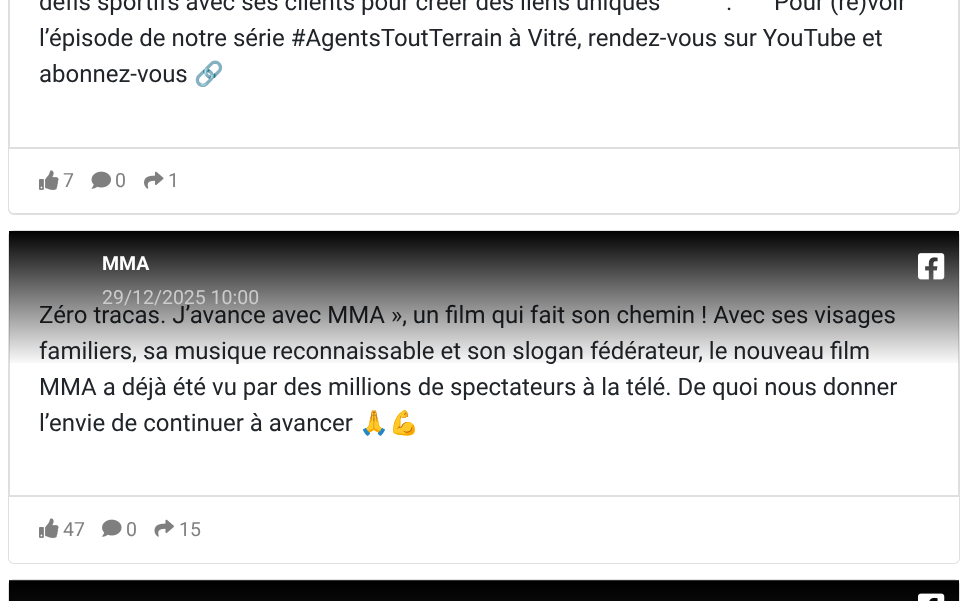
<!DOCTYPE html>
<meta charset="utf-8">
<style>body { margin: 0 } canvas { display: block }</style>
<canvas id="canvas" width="967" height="601"></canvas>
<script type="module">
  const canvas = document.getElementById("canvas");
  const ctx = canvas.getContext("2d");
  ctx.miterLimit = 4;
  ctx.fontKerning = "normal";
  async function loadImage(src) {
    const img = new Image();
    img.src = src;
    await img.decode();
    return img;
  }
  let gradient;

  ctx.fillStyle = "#ffffff";
  ctx.fillRect(0, 0, 967, 601);
  ctx.beginPath();
  ctx.roundRect(9, -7, 950, 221, 5);
  ctx.strokeStyle = "#dfdfdf";
  ctx.lineWidth = 2;
  ctx.stroke();
  ctx.font = "24px Roboto";
  ctx.fillStyle = "#212529";
  ctx.fillText("défis sportifs avec ses clients pour créer des liens uniques", 39, 10);
  ctx.fillText(".", 726, 10);
  ctx.fillText("Pour (re)voir", 774, 10);
  ctx.fillText("l’épisode de notre série #AgentsToutTerrain à Vitré, rendez-vous sur YouTube et", 39, 46);
  ctx.fillText("abonnez-vous", 39, 82);
  ctx.font = "24px Noto Color Emoji";
  ctx.fillText("🔗", 194, 82);
  ctx.fillStyle = "#ffffff";
  ctx.beginPath();
  ctx.roundRect(9, 147, 950, 66, [0, 0, 5, 5]);
  ctx.fill();
  ctx.fillStyle = "#dfdfdf";
  ctx.fillRect(9, 147, 950, 2);
  ctx.drawImage(await loadImage("img1.png"), 39, 170, 20, 20);
  ctx.font = "19.5px Roboto";
  ctx.fillStyle = "#7f7f7f";
  ctx.fillText("7", 63, 187);
  ctx.drawImage(await loadImage("img2.png"), 91, 171, 20, 18);
  ctx.fillText("0", 115, 187);
  ctx.drawImage(await loadImage("img3.png"), 144, 171, 20, 18);
  ctx.fillText("1", 168, 187);
  ctx.beginPath();
  ctx.roundRect(9, 231, 950, 332, 5);
  ctx.stroke();
  ctx.font = "24px Roboto";
  ctx.fillStyle = "#212529";
  ctx.fillText("Zéro tracas. J’avance avec MMA », un film qui fait son chemin ! Avec ses visages", 39, 323);
  ctx.fillText("familiers, sa musique reconnaissable et son slogan fédérateur, le nouveau film", 39, 359);
  gradient = ctx.createLinearGradient(484, 231, 484, 366);
  gradient.addColorStop(0, "#000000");
  gradient.addColorStop(1, "rgba(0, 0, 0, 0)");
  ctx.fillStyle = gradient;
  ctx.fillRect(9, 231, 950, 132);
  ctx.font = "bold 19.5px Roboto";
  ctx.fillStyle = "#ffffff";
  ctx.fillText("MMA", 102, 270);
  ctx.font = "19.5px Roboto";
  ctx.fillStyle = "#cccccc";
  ctx.fillText("29/12/2025 10:00", 102, 304);
  ctx.drawImage(await loadImage("img4.png"), 918, 253, 27, 27);
  ctx.font = "24px Roboto";
  ctx.fillStyle = "#212529";
  ctx.fillText("MMA a déjà été vu par des millions de spectateurs à la télé. De quoi nous donner", 39, 395);
  ctx.fillText("l’envie de continuer à avancer", 39, 431);
  ctx.font = "24px Noto Color Emoji";
  ctx.fillText("🙏💪", 359, 431);
  ctx.fillStyle = "#ffffff";
  ctx.beginPath();
  ctx.roundRect(9, 495, 950, 68, [0, 0, 5, 5]);
  ctx.fill();
  ctx.fillStyle = "#dfdfdf";
  ctx.fillRect(9, 495, 950, 2);
  ctx.drawImage(await loadImage("img1.png"), 39, 518, 20, 20);
  ctx.font = "19.5px Roboto";
  ctx.fillStyle = "#7f7f7f";
  ctx.fillText("47", 63, 536);
  ctx.drawImage(await loadImage("img5.png"), 102, 519, 20, 18);
  ctx.fillText("0", 126, 536);
  ctx.drawImage(await loadImage("img6.png"), 154, 519, 20, 18);
  ctx.fillText("15", 179, 536);
  ctx.beginPath();
  ctx.roundRect(9, 580, 950, 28, 5);
  ctx.stroke();
  ctx.fillStyle = "#333333";
  ctx.fillRect(9, 580, 950, 1);
  gradient = ctx.createLinearGradient(484, 580, 484, 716);
  gradient.addColorStop(0, "#000000");
  gradient.addColorStop(1, "#333333");
  ctx.fillStyle = gradient;
  ctx.fillRect(9, 581, 950, 20);
  ctx.drawImage(await loadImage("img7.png"), 918, 593, 27, 8);
</script>
